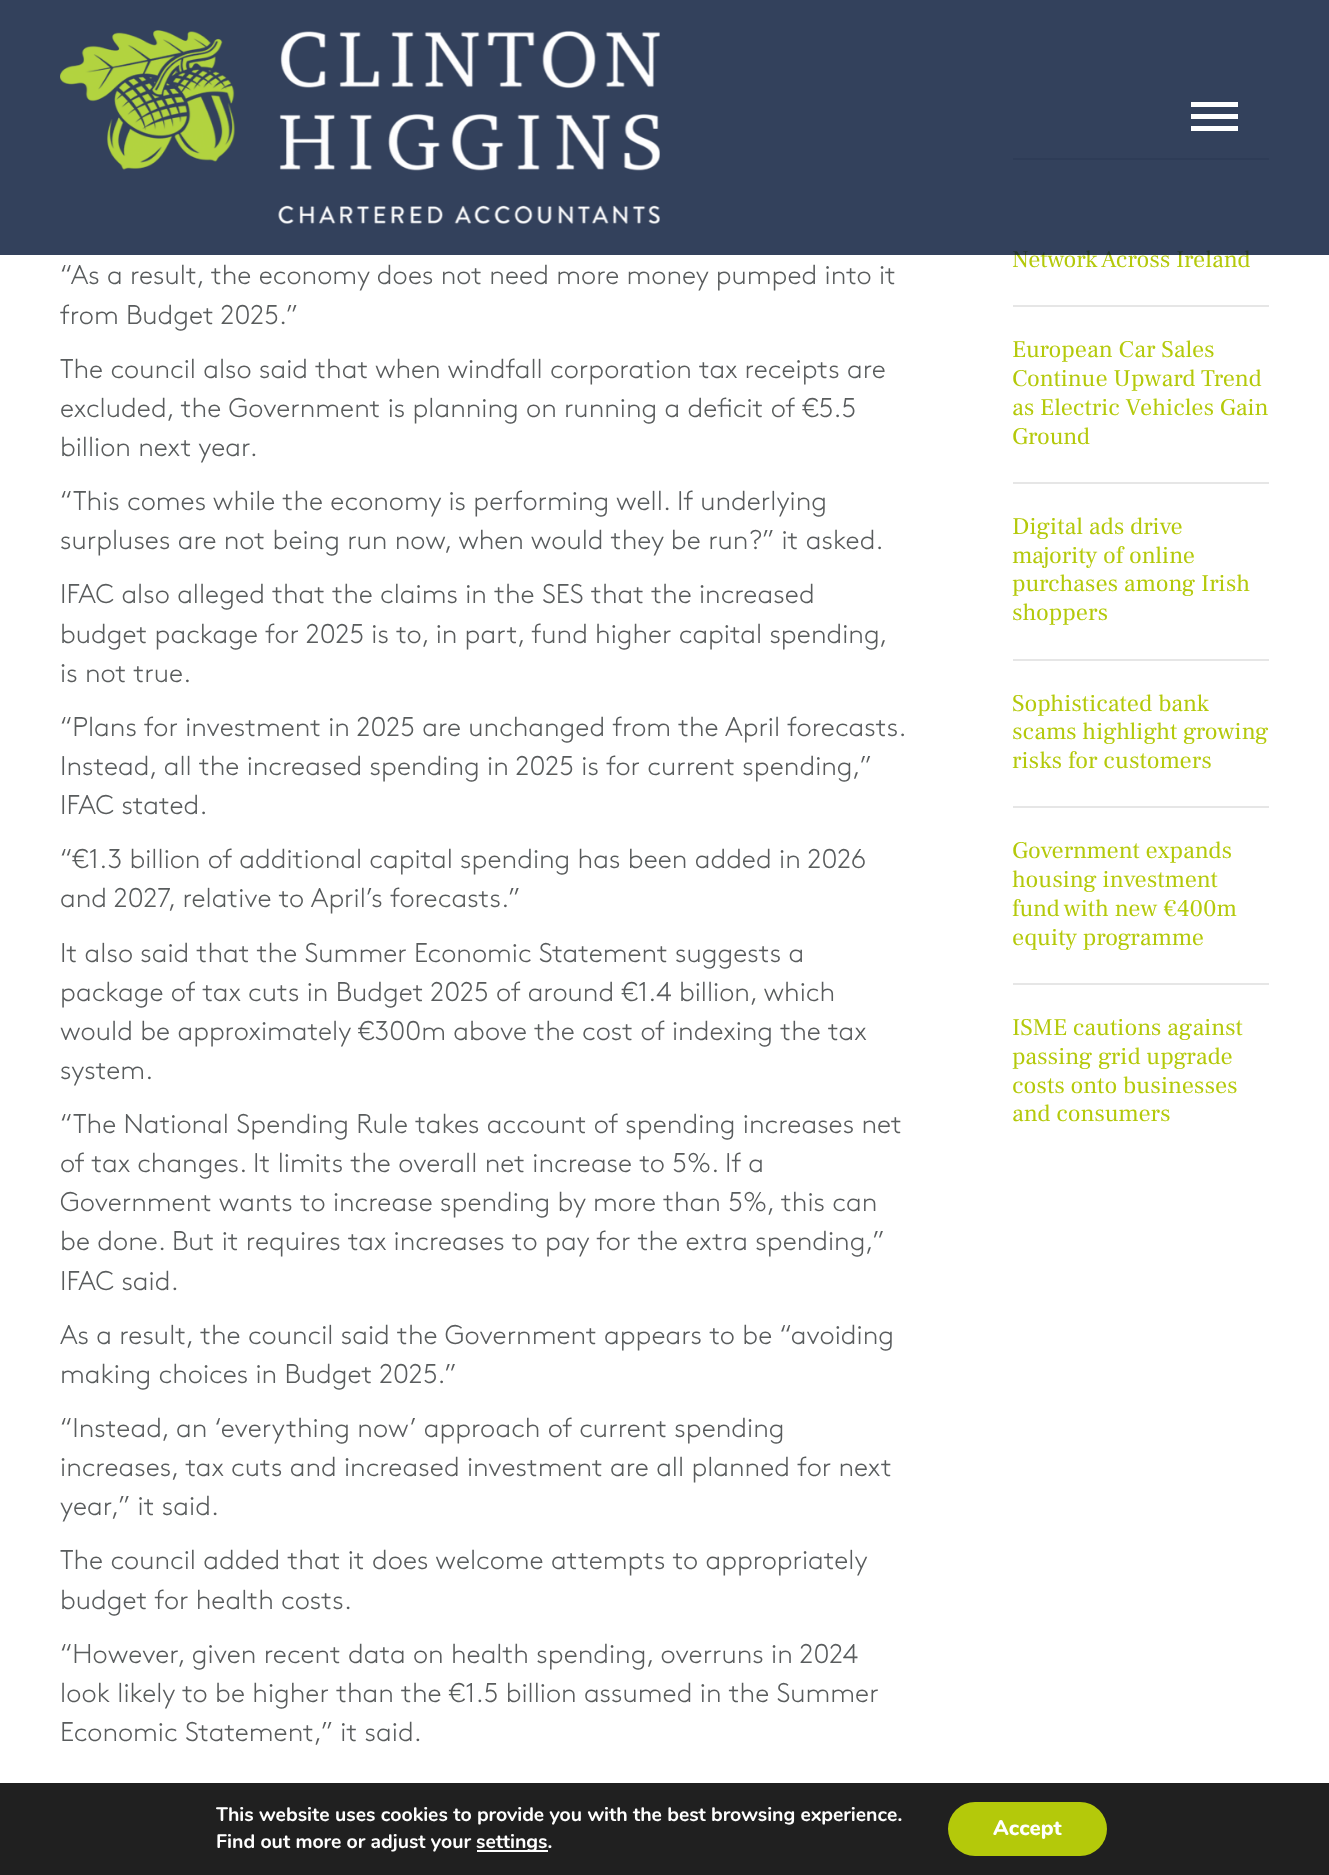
<!DOCTYPE html>
<meta charset="utf-8">
<style>body { margin: 0 } canvas { display: block }</style>
<canvas id="canvas" width="1329" height="1875"></canvas>
<script type="module">
  const canvas = document.getElementById("canvas");
  const ctx = canvas.getContext("2d");
  ctx.miterLimit = 4;
  ctx.fontKerning = "normal";
  async function loadImage(src) {
    const img = new Image();
    img.src = src;
    await img.decode();
    return img;
  }

  ctx.fillStyle = "#ffffff";
  ctx.fillRect(0, 0, 1329, 1875);
  ctx.fillStyle = "#e6e6e6";
  ctx.fillRect(1013, 158, 256, 2);
  ctx.font = "24px Frank Ruhl Libre";
  ctx.fillStyle = "#b4c90a";
  ctx.fillText("Network Across Ireland", 1012, 267);
  ctx.fillStyle = "rgba(0, 18, 51, 0.8)";
  ctx.fillRect(0, 0, 1329, 255);
  ctx.fillStyle = "#ffffff";
  ctx.fillRect(1191, 114, 47, 5);
  ctx.fillRect(1191, 102, 47, 5);
  ctx.fillRect(1191, 126, 47, 5);
  ctx.drawImage(await loadImage("img1.png"), 60, 30, 600, 194);
  ctx.font = "300 27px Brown";
  ctx.fillStyle = "#595c5d";
  ctx.fillText("“As a result, the economy does not need more money pumped into it", 60, 284);
  ctx.fillText("from Budget 2025.”", 60, 324);
  ctx.fillText("The council also said that when windfall corporation tax receipts are", 60, 378);
  ctx.fillText("excluded, the Government is planning on running a deficit of €5.5", 60, 417);
  ctx.fillText("billion next year.", 60, 456);
  ctx.fillText("“This comes while the economy is performing well. If underlying", 60, 510);
  ctx.fillText("surpluses are not being run now, when would they be run?” it asked.", 60, 549);
  ctx.fillText("IFAC also alleged that the claims in the SES that the increased", 60, 603);
  ctx.wordSpacing = "-0.1px";
  ctx.fillText("budget package for 2025 is to, in part, fund higher capital spending,", 60, 643);
  ctx.wordSpacing = "0px";
  ctx.fillText("is not true.", 60, 682);
  ctx.wordSpacing = "-0.1px";
  ctx.fillText("“Plans for investment in 2025 are unchanged from the April forecasts.", 60, 736);
  ctx.wordSpacing = "0px";
  ctx.fillText("Instead, all the increased spending in 2025 is for current spending,”", 60, 775);
  ctx.fillText("IFAC stated.", 60, 814);
  ctx.fillText("“€1.3 billion of additional capital spending has been added in 2026", 60, 868);
  ctx.fillText("and 2027, relative to April’s forecasts.”", 60, 907);
  ctx.fillText("It also said that the Summer Economic Statement suggests a", 60, 962);
  ctx.fillText("package of tax cuts in Budget 2025 of around €1.4 billion, which", 60, 1001);
  ctx.fillText("would be approximately €300m above the cost of indexing the tax", 60, 1040);
  ctx.fillText("system.", 60, 1079);
  ctx.fillText("“The National Spending Rule takes account of spending increases net", 60, 1133);
  ctx.fillText("of tax changes. It limits the overall net increase to 5%. If a", 60, 1172);
  ctx.fillText("Government wants to increase spending by more than 5%, this can", 60, 1211);
  ctx.fillText("be done. But it requires tax increases to pay for the extra spending,”", 60, 1250);
  ctx.fillText("IFAC said.", 60, 1290);
  ctx.fillText("As a result, the council said the Government appears to be “avoiding", 60, 1344);
  ctx.fillText("making choices in Budget 2025.”", 60, 1383);
  ctx.fillText("“Instead, an ‘everything now’ approach of current spending", 60, 1437);
  ctx.fillText("increases, tax cuts and increased investment are all planned for next", 60, 1476);
  ctx.fillText("year,” it said.", 60, 1515);
  ctx.fillText("The council added that it does welcome attempts to appropriately", 60, 1569);
  ctx.fillText("budget for health costs.", 60, 1609);
  ctx.fillText("“However, given recent data on health spending, overruns in 2024", 60, 1663);
  ctx.fillText("look likely to be higher than the €1.5 billion assumed in the Summer", 60, 1702);
  ctx.fillText("Economic Statement,” it said.", 60, 1741);
  ctx.fillStyle = "#e6e6e6";
  ctx.fillRect(1013, 305, 256, 2);
  ctx.fillRect(1013, 482, 256, 2);
  ctx.font = "24px Frank Ruhl Libre";
  ctx.fillStyle = "#b4c90a";
  ctx.fillText("European Car Sales", 1012, 357);
  ctx.fillText("Continue Upward Trend", 1012, 386);
  ctx.fillText("as Electric Vehicles Gain", 1012, 415);
  ctx.fillText("Ground", 1012, 444);
  ctx.fillStyle = "#e6e6e6";
  ctx.fillRect(1013, 659, 256, 2);
  ctx.fillStyle = "#b4c90a";
  ctx.fillText("Digital ads drive", 1012, 534);
  ctx.fillText("majority of online", 1012, 563);
  ctx.fillText("purchases among Irish", 1012, 591);
  ctx.fillText("shoppers", 1012, 620);
  ctx.fillStyle = "#e6e6e6";
  ctx.fillRect(1013, 806, 256, 2);
  ctx.fillStyle = "#b4c90a";
  ctx.fillText("Sophisticated bank", 1012, 711);
  ctx.fillText("scams highlight growing", 1012, 739);
  ctx.fillText("risks for customers", 1012, 768);
  ctx.fillStyle = "#e6e6e6";
  ctx.fillRect(1013, 983, 256, 2);
  ctx.fillStyle = "#b4c90a";
  ctx.fillText("Government expands", 1012, 858);
  ctx.fillText("housing investment", 1012, 887);
  ctx.fillText("fund with new €400m", 1012, 916);
  ctx.fillText("equity programme", 1012, 945);
  ctx.fillText("ISME cautions against", 1012, 1035);
  ctx.fillText("passing grid upgrade", 1012, 1064);
  ctx.fillText("costs onto businesses", 1012, 1093);
  ctx.fillText("and consumers", 1012, 1121);
  ctx.fillStyle = "#202020";
  ctx.fillRect(0, 1783, 1329, 92);
  ctx.font = "bold 19.5px Nunito";
  ctx.fillStyle = "#ffffff";
  ctx.fillText("This website uses cookies to provide you with the best browsing experience.", 216, 1821);
  ctx.fillText("Find out more or adjust your", 216, 1848);
  ctx.fillRect(477, 1850, 71, 2);
  ctx.fillText("settings.", 476, 1848);
  ctx.fillStyle = "#b4c90a";
  ctx.beginPath();
  ctx.roundRect(948, 1802, 159, 54, 27);
  ctx.fill();
  ctx.font = "800 21px Nunito";
  ctx.fillStyle = "#ffffff";
  ctx.fillText("Accept", 993, 1835);
</script>
